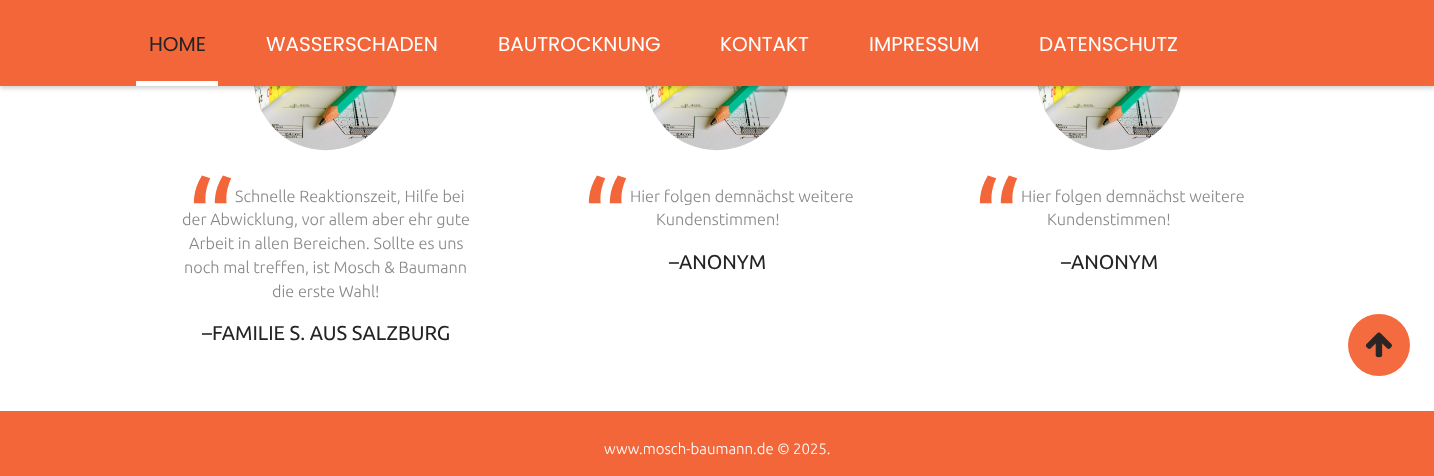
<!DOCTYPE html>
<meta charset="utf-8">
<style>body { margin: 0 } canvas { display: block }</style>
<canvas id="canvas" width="1434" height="476"></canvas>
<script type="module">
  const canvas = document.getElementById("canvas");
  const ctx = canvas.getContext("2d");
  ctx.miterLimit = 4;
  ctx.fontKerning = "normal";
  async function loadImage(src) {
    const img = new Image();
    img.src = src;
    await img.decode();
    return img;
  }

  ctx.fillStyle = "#ffffff";
  ctx.fillRect(0, 0, 1434, 476);
  ctx.drawImage(await loadImage("img1.png"), 254, 86, 144, 65);
  ctx.drawImage(await loadImage("img2.png"), 645, 86, 144, 65);
  ctx.drawImage(await loadImage("img3.png"), 1037, 86, 144, 65);
  ctx.fillStyle = "rgba(0, 0, 0, 0.2)";
  ctx.filter = "blur(2.5px)";
  ctx.beginPath();
  ctx.rect(0, 1, 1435, 87);
  ctx.fill();
  ctx.filter = "none";
  ctx.fillStyle = "#f36639";
  ctx.fillRect(0, 0, 1434, 86);
  ctx.font = "20px Poppins";
  ctx.fillStyle = "#242424";
  ctx.fillText("HOME", 149, 51);
  ctx.fillStyle = "#ffffff";
  ctx.fillRect(136, 81, 82, 5);
  ctx.fillText("WASSERSCHADEN", 266, 51);
  ctx.fillText("BAUTROCKNUNG", 498, 51);
  ctx.fillText("KONTAKT", 720, 51);
  ctx.fillText("IMPRESSUM", 869, 51);
  ctx.fillText("DATENSCHUTZ", 1039, 51);
  ctx.font = "115px Ubuntu";
  ctx.fillStyle = "#f36639";
  ctx.fillText("“", 187, 263);
  ctx.font = "300 16.25px Ubuntu";
  ctx.fillStyle = "#888888";
  ctx.fillText("Schnelle Reaktionszeit, Hilfe bei", 235, 202);
  ctx.fillText("der Abwicklung, vor allem aber ehr gute", 182, 225);
  ctx.fillText("Arbeit in allen Bereichen. Sollte es uns", 189, 249);
  ctx.fillText("noch mal treffen, ist Mosch & Baumann", 184, 273);
  ctx.fillText("die erste Wahl!", 272, 297);
  ctx.font = "20px Ubuntu";
  ctx.fillStyle = "#242424";
  ctx.fillText("–FAMILIE S. AUS SALZBURG", 202, 340);
  ctx.font = "115px Ubuntu";
  ctx.fillStyle = "#f36639";
  ctx.fillText("“", 582, 263);
  ctx.font = "300 16.25px Ubuntu";
  ctx.fillStyle = "#888888";
  ctx.fillText("Hier folgen demnächst weitere", 630, 202);
  ctx.fillText("Kundenstimmen!", 656, 225);
  ctx.font = "20px Ubuntu";
  ctx.fillStyle = "#242424";
  ctx.fillText("–ANONYM", 669, 269);
  ctx.font = "115px Ubuntu";
  ctx.fillStyle = "#f36639";
  ctx.fillText("“", 973, 263);
  ctx.font = "300 16.25px Ubuntu";
  ctx.fillStyle = "#888888";
  ctx.fillText("Hier folgen demnächst weitere", 1021, 202);
  ctx.fillText("Kundenstimmen!", 1047, 225);
  ctx.font = "20px Ubuntu";
  ctx.fillStyle = "#242424";
  ctx.fillText("–ANONYM", 1061, 269);
  ctx.fillStyle = "#f36639";
  ctx.fillRect(0, 411, 1434, 65);
  ctx.font = "300 15px Ubuntu";
  ctx.fillStyle = "#ffffff";
  ctx.fillText("www.mosch-baumann.de © 2025.", 604, 454);
  ctx.fillStyle = "#f36b3f";
  ctx.beginPath();
  ctx.arc(1379, 345, 31, 0, Math.PI * 2);
  ctx.fill();
  ctx.drawImage(await loadImage("img4.png"), 1365, 332, 27, 26);
</script>
